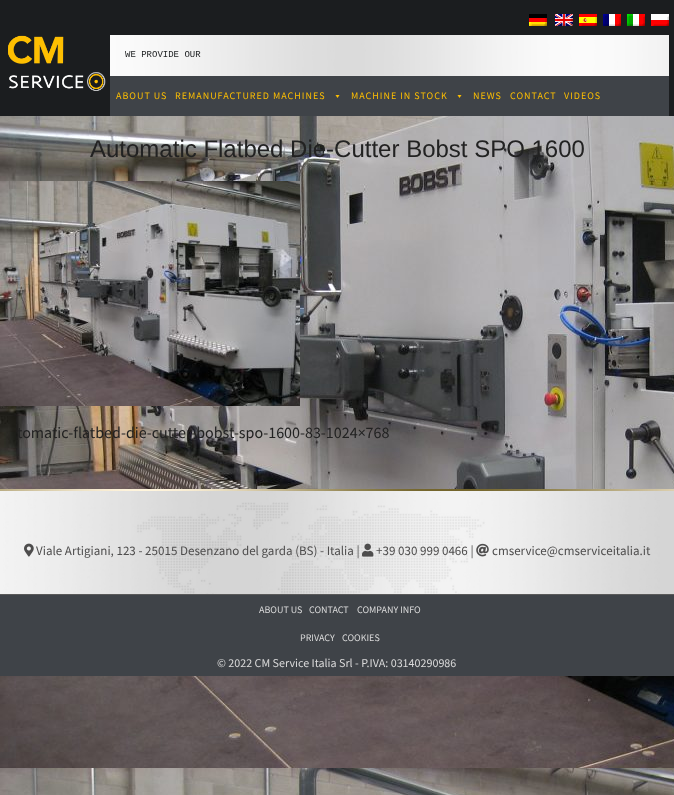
<!DOCTYPE html>
<meta charset="utf-8">
<style>body { margin: 0 } canvas { display: block }</style>
<canvas id="canvas" width="674" height="795"></canvas>
<script type="module">
  const canvas = document.getElementById("canvas");
  const ctx = canvas.getContext("2d");
  ctx.miterLimit = 4;
  ctx.fontKerning = "normal";
  async function loadImage(src) {
    const img = new Image();
    img.src = src;
    await img.decode();
    return img;
  }

  ctx.fillStyle = "#ffffff";
  ctx.fillRect(0, 0, 674, 795);
  ctx.drawImage(await loadImage("img1.png"), 0, 116, 674, 679);
  ctx.fillStyle = "#1b1d1f";
  ctx.fillRect(0, 0, 674, 116);
  ctx.drawImage(await loadImage("img2.png"), 8, 35, 98, 56);
  ctx.drawImage(await loadImage("img3.png"), 110, 35, 559, 41);
  ctx.drawImage(await loadImage("img4.png"), 529, 14, 18, 12);
  ctx.drawImage(await loadImage("img5.png"), 555, 14, 18, 12);
  ctx.drawImage(await loadImage("img6.png"), 579, 14, 18, 12);
  ctx.drawImage(await loadImage("img7.png"), 603, 14, 18, 12);
  ctx.drawImage(await loadImage("img8.png"), 627, 14, 18, 12);
  ctx.drawImage(await loadImage("img9.png"), 651, 14, 18, 12);
  ctx.fillStyle = "rgba(255, 255, 255, 0.1)";
  ctx.fillRect(265, 75, 162, 1);
  ctx.font = "9px Liberation Mono";
  ctx.fillStyle = "#1b1d1f";
  ctx.fillText("WE PROVIDE OUR", 125, 57);
  ctx.fillStyle = "#3f4348";
  ctx.fillRect(110, 76, 559, 40);
  ctx.letterSpacing = "1px";
  ctx.font = "10px Source Sans Pro";
  ctx.fillStyle = "#febf01";
  ctx.fillText("ABOUT US", 116, 99);
  ctx.fillText("REMANUFACTURED MACHINES", 175, 99);
  ctx.beginPath();
  ctx.moveTo(339.5, 95);
  ctx.lineTo(337.5, 98);
  ctx.lineTo(335.5, 95);
  ctx.closePath();
  ctx.fill();
  ctx.fillText("MACHINE IN STOCK", 351, 99);
  ctx.beginPath();
  ctx.moveTo(461.5, 95);
  ctx.lineTo(459.5, 98);
  ctx.lineTo(457.5, 95);
  ctx.closePath();
  ctx.fill();
  ctx.fillText("NEWS", 473, 99);
  ctx.fillText("CONTACT", 510, 99);
  ctx.fillText("VIDEOS", 564, 99);
  ctx.letterSpacing = "0px";
  ctx.font = "24px Liberation Sans";
  ctx.fillStyle = "#222222";
  ctx.fillText("Automatic Flatbed Die-Cutter Bobst SPO 1600", 90, 157);
  ctx.drawImage(await loadImage("img10.png"), 0, 181, 300, 225);
  ctx.font = "16px Source Sans Pro";
  ctx.fillText("tomatic-flatbed-die-cutter-bobst-spo-1600-83-1024×768", 17, 438);
  ctx.drawImage(await loadImage("img11.png"), 0, 491, 674, 103);
  ctx.drawImage(await loadImage("img12.png"), 0, 489, 674, 2);
  ctx.drawImage(await loadImage("img13.png"), 24, 543, 10, 14);
  ctx.font = "13px Source Sans Pro";
  ctx.fillStyle = "#4e4d4d";
  ctx.fillText("Viale Artigiani, 123 - 25015 Desenzano del garda (BS) - Italia |", 36, 555);
  ctx.drawImage(await loadImage("img14.png"), 362, 543, 12, 14);
  ctx.fillText("+39 030 999 0466 |", 376, 555);
  ctx.drawImage(await loadImage("img15.png"), 476, 543, 13, 14);
  ctx.fillText("cmservice@cmserviceitalia.it", 492, 555);
  ctx.fillStyle = "#3f4348";
  ctx.fillRect(0, 595, 674, 81);
  ctx.fillStyle = "#5a5a5a";
  ctx.fillRect(0, 594, 674, 1);
  ctx.font = "10px Source Sans Pro";
  ctx.fillStyle = "#dadada";
  ctx.fillText("ABOUT US", 259, 613);
  ctx.fillText("CONTACT", 309, 613);
  ctx.fillText("COMPANY INFO", 357, 613);
  ctx.fillText("PRIVACY", 300, 641);
  ctx.fillText("COOKIES", 342, 641);
  ctx.font = "12px Source Sans Pro";
  ctx.fillText("© 2022 CM Service Italia Srl - P.IVA: 03140290986", 217, 667);
</script>
